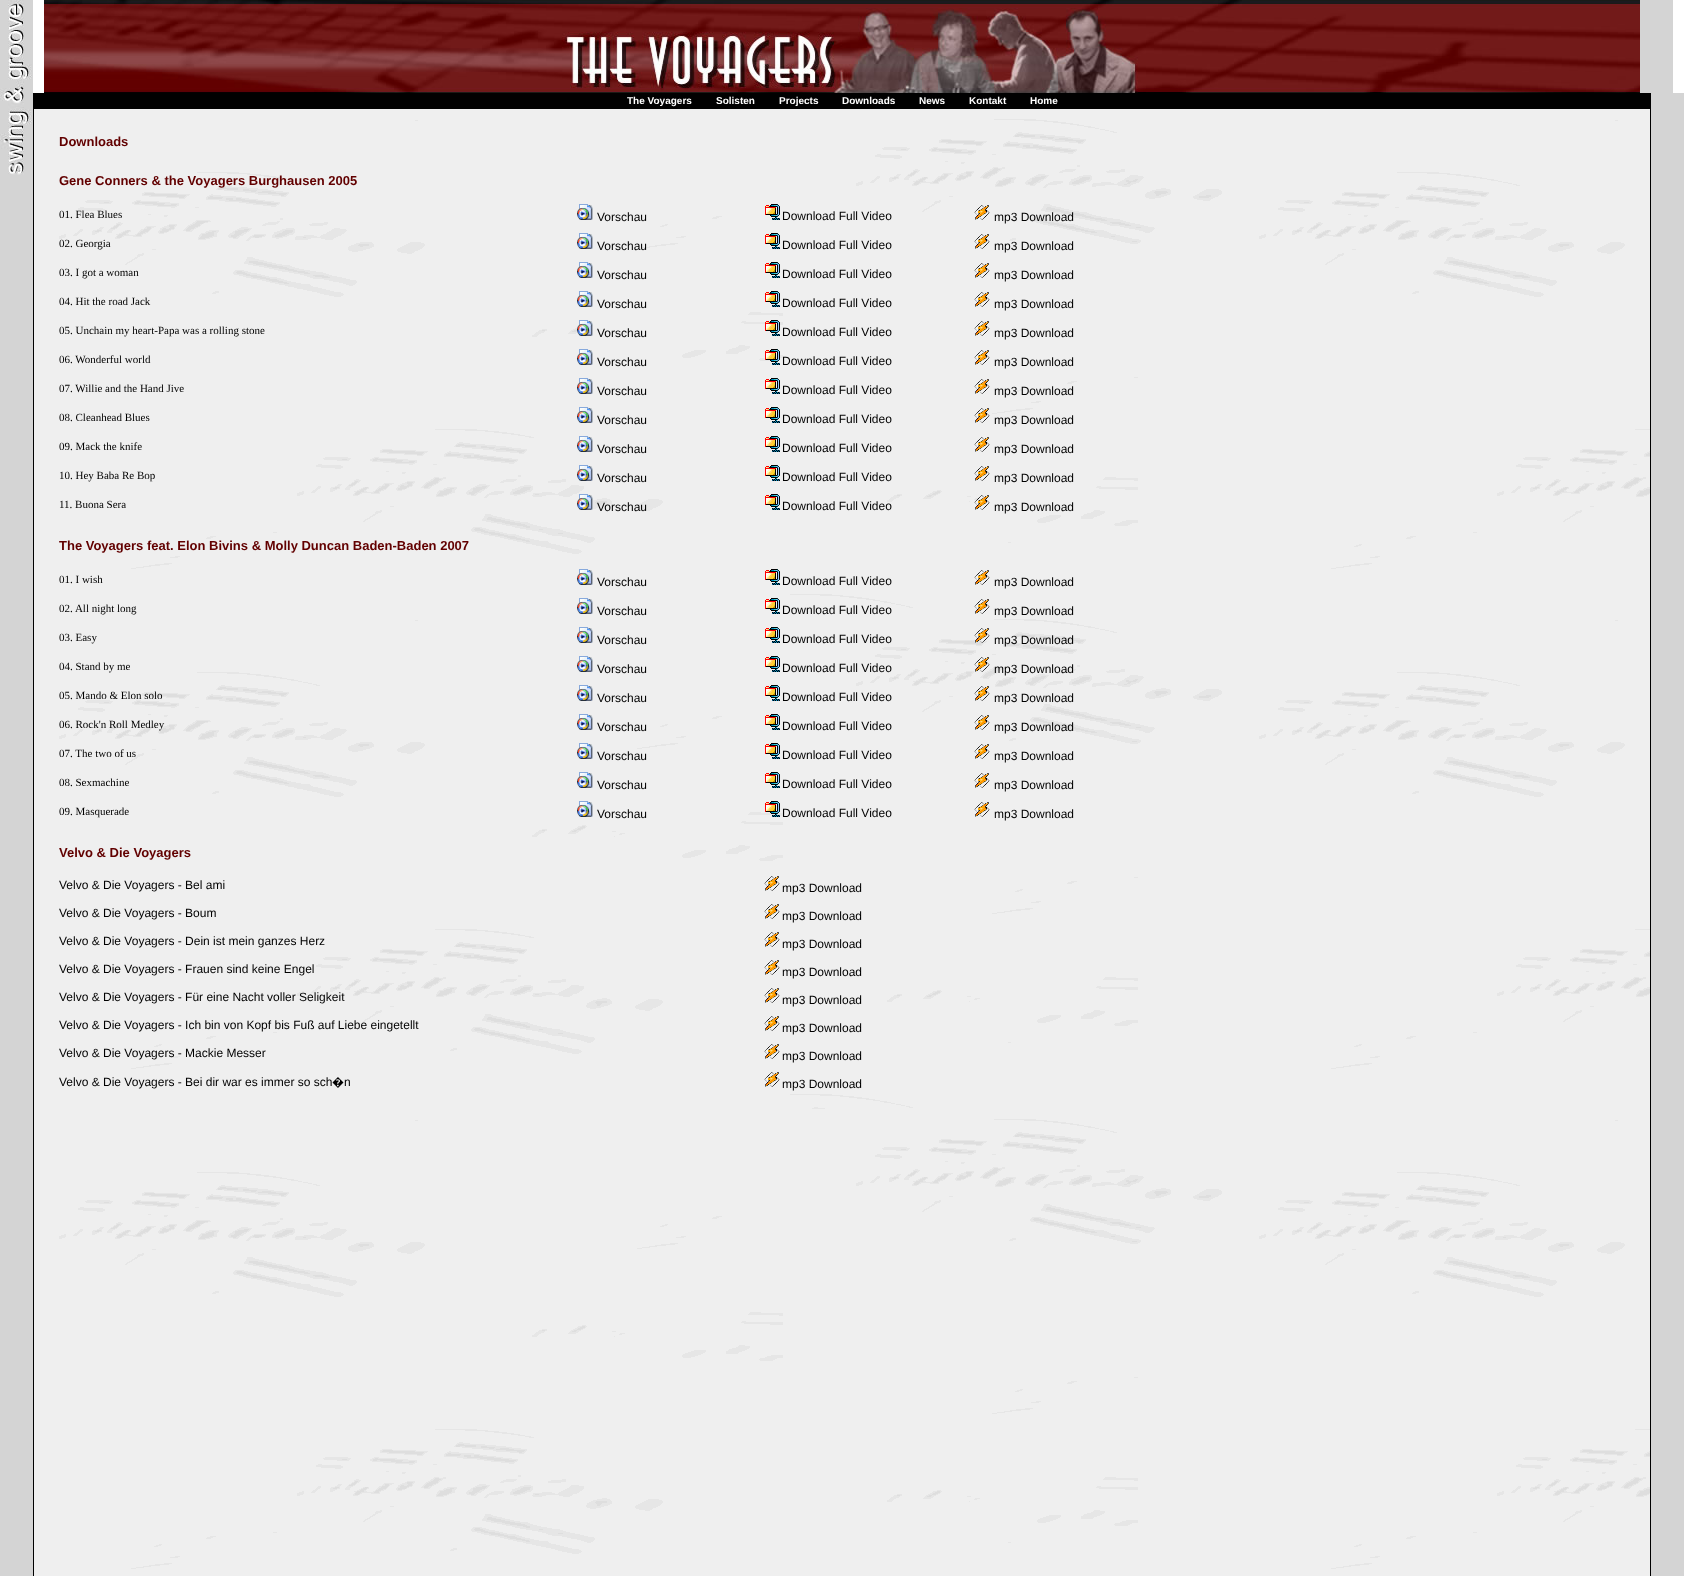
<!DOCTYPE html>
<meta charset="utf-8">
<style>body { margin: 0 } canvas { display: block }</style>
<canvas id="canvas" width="1684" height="1576"></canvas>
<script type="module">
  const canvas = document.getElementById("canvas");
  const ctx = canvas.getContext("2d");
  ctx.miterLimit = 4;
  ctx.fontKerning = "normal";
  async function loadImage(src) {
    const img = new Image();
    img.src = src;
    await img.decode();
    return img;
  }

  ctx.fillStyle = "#ffffff";
  ctx.fillRect(0, 0, 1684, 1576);
  ctx.drawImage(await loadImage("img1.png"), 0, 0, 33, 93);
  ctx.drawImage(await loadImage("img2.png"), 44, 0, 1596, 93);
  ctx.fillStyle = "#d4d4d4";
  ctx.fillRect(1640, 0, 33, 93);
  ctx.drawImage(await loadImage("img3.png"), 0, 93, 33, 16);
  ctx.fillStyle = "#010101";
  ctx.fillRect(33, 93, 1618, 16);
  ctx.font = "bold 10px Liberation Sans";
  ctx.fillStyle = "#ffffff";
  ctx.fillText("The Voyagers", 627, 104);
  ctx.fillText("Solisten", 716, 104);
  ctx.fillText("Projects", 779, 104);
  ctx.fillText("Downloads", 842, 104);
  ctx.fillText("News", 919, 104);
  ctx.fillText("Kontakt", 969, 104);
  ctx.fillText("Home", 1030, 104);
  ctx.fillStyle = "#d4d4d4";
  ctx.fillRect(0, 109, 33, 1467);
  ctx.drawImage(await loadImage("img4.png"), 0, 109, 32, 66);
  ctx.drawImage(await loadImage("img5.png"), 34, 109, 1616, 1467);
  ctx.fillStyle = "#000000";
  ctx.fillRect(1650, 109, 1, 1467);
  ctx.fillRect(33, 109, 1, 1467);
  ctx.font = "bold 13px Liberation Sans";
  ctx.fillStyle = "#620000";
  ctx.fillText("Downloads", 59, 146);
  ctx.fillText("Gene Conners & the Voyagers Burghausen 2005", 59, 185);
  ctx.font = "11px Liberation Serif";
  ctx.fillStyle = "#000000";
  ctx.fillText("01. Flea Blues", 59, 218);
  ctx.drawImage(await loadImage("img6.png"), 577, 204, 16, 16);
  ctx.font = "12px Liberation Sans";
  ctx.fillText("Vorschau", 597, 221);
  ctx.drawImage(await loadImage("img7.png"), 765, 204, 15, 16);
  ctx.fillText("Download Full Video", 782, 220);
  ctx.drawImage(await loadImage("img8.png"), 974, 205, 16, 15);
  ctx.fillText("mp3 Download", 994, 221);
  ctx.font = "11px Liberation Serif";
  ctx.fillText("02. Georgia", 59, 247);
  ctx.drawImage(await loadImage("img6.png"), 577, 233, 16, 16);
  ctx.font = "12px Liberation Sans";
  ctx.fillText("Vorschau", 597, 250);
  ctx.drawImage(await loadImage("img7.png"), 765, 233, 15, 16);
  ctx.fillText("Download Full Video", 782, 249);
  ctx.drawImage(await loadImage("img8.png"), 974, 234, 16, 15);
  ctx.fillText("mp3 Download", 994, 250);
  ctx.font = "11px Liberation Serif";
  ctx.fillText("03. I got a woman", 59, 276);
  ctx.drawImage(await loadImage("img6.png"), 577, 262, 16, 16);
  ctx.font = "12px Liberation Sans";
  ctx.fillText("Vorschau", 597, 279);
  ctx.drawImage(await loadImage("img7.png"), 765, 262, 15, 16);
  ctx.fillText("Download Full Video", 782, 278);
  ctx.drawImage(await loadImage("img8.png"), 974, 263, 16, 15);
  ctx.fillText("mp3 Download", 994, 279);
  ctx.font = "11px Liberation Serif";
  ctx.fillText("04. Hit the road Jack", 59, 305);
  ctx.drawImage(await loadImage("img6.png"), 577, 291, 16, 16);
  ctx.font = "12px Liberation Sans";
  ctx.fillText("Vorschau", 597, 308);
  ctx.drawImage(await loadImage("img7.png"), 765, 291, 15, 16);
  ctx.fillText("Download Full Video", 782, 307);
  ctx.drawImage(await loadImage("img8.png"), 974, 292, 16, 15);
  ctx.fillText("mp3 Download", 994, 308);
  ctx.font = "11px Liberation Serif";
  ctx.fillText("05. Unchain my heart-Papa was a rolling stone", 59, 334);
  ctx.drawImage(await loadImage("img6.png"), 577, 320, 16, 16);
  ctx.font = "12px Liberation Sans";
  ctx.fillText("Vorschau", 597, 337);
  ctx.drawImage(await loadImage("img9.png"), 765, 320, 15, 16);
  ctx.fillText("Download Full Video", 782, 336);
  ctx.drawImage(await loadImage("img8.png"), 974, 321, 16, 15);
  ctx.fillText("mp3 Download", 994, 337);
  ctx.font = "11px Liberation Serif";
  ctx.fillText("06. Wonderful world", 59, 363);
  ctx.drawImage(await loadImage("img6.png"), 577, 349, 16, 16);
  ctx.font = "12px Liberation Sans";
  ctx.fillText("Vorschau", 597, 366);
  ctx.drawImage(await loadImage("img10.png"), 765, 349, 15, 16);
  ctx.fillText("Download Full Video", 782, 365);
  ctx.drawImage(await loadImage("img8.png"), 974, 350, 16, 15);
  ctx.fillText("mp3 Download", 994, 366);
  ctx.font = "11px Liberation Serif";
  ctx.fillText("07. Willie and the Hand Jive", 59, 392);
  ctx.drawImage(await loadImage("img6.png"), 577, 378, 16, 16);
  ctx.font = "12px Liberation Sans";
  ctx.fillText("Vorschau", 597, 395);
  ctx.drawImage(await loadImage("img7.png"), 765, 378, 15, 16);
  ctx.fillText("Download Full Video", 782, 394);
  ctx.drawImage(await loadImage("img8.png"), 974, 379, 16, 15);
  ctx.fillText("mp3 Download", 994, 395);
  ctx.font = "11px Liberation Serif";
  ctx.fillText("08. Cleanhead Blues", 59, 421);
  ctx.drawImage(await loadImage("img6.png"), 577, 407, 16, 16);
  ctx.font = "12px Liberation Sans";
  ctx.fillText("Vorschau", 597, 424);
  ctx.drawImage(await loadImage("img7.png"), 765, 407, 15, 16);
  ctx.fillText("Download Full Video", 782, 423);
  ctx.drawImage(await loadImage("img8.png"), 974, 408, 16, 15);
  ctx.fillText("mp3 Download", 994, 424);
  ctx.font = "11px Liberation Serif";
  ctx.fillText("09. Mack the knife", 59, 450);
  ctx.drawImage(await loadImage("img6.png"), 577, 436, 16, 16);
  ctx.font = "12px Liberation Sans";
  ctx.fillText("Vorschau", 597, 453);
  ctx.drawImage(await loadImage("img7.png"), 765, 436, 15, 16);
  ctx.fillText("Download Full Video", 782, 452);
  ctx.drawImage(await loadImage("img8.png"), 974, 437, 16, 15);
  ctx.fillText("mp3 Download", 994, 453);
  ctx.font = "11px Liberation Serif";
  ctx.fillText("10. Hey Baba Re Bop", 59, 479);
  ctx.drawImage(await loadImage("img6.png"), 577, 465, 16, 16);
  ctx.font = "12px Liberation Sans";
  ctx.fillText("Vorschau", 597, 482);
  ctx.drawImage(await loadImage("img7.png"), 765, 465, 15, 16);
  ctx.fillText("Download Full Video", 782, 481);
  ctx.drawImage(await loadImage("img8.png"), 974, 466, 16, 15);
  ctx.fillText("mp3 Download", 994, 482);
  ctx.font = "11px Liberation Serif";
  ctx.fillText("11. Buona Sera", 59, 508);
  ctx.drawImage(await loadImage("img6.png"), 577, 494, 16, 16);
  ctx.font = "12px Liberation Sans";
  ctx.fillText("Vorschau", 597, 511);
  ctx.drawImage(await loadImage("img7.png"), 765, 494, 15, 16);
  ctx.fillText("Download Full Video", 782, 510);
  ctx.drawImage(await loadImage("img11.png"), 974, 495, 16, 15);
  ctx.fillText("mp3 Download", 994, 511);
  ctx.font = "bold 13px Liberation Sans";
  ctx.fillStyle = "#620000";
  ctx.fillText("The Voyagers feat. Elon Bivins & Molly Duncan Baden-Baden 2007", 59, 550);
  ctx.font = "11px Liberation Serif";
  ctx.fillStyle = "#000000";
  ctx.fillText("01. I wish", 59, 583);
  ctx.drawImage(await loadImage("img6.png"), 577, 569, 16, 16);
  ctx.font = "12px Liberation Sans";
  ctx.fillText("Vorschau", 597, 586);
  ctx.drawImage(await loadImage("img7.png"), 765, 569, 15, 16);
  ctx.fillText("Download Full Video", 782, 585);
  ctx.drawImage(await loadImage("img8.png"), 974, 570, 16, 15);
  ctx.fillText("mp3 Download", 994, 586);
  ctx.font = "11px Liberation Serif";
  ctx.fillText("02. All night long", 59, 612);
  ctx.drawImage(await loadImage("img6.png"), 577, 598, 16, 16);
  ctx.font = "12px Liberation Sans";
  ctx.fillText("Vorschau", 597, 615);
  ctx.drawImage(await loadImage("img7.png"), 765, 598, 15, 16);
  ctx.fillText("Download Full Video", 782, 614);
  ctx.drawImage(await loadImage("img8.png"), 974, 599, 16, 15);
  ctx.fillText("mp3 Download", 994, 615);
  ctx.font = "11px Liberation Serif";
  ctx.fillText("03. Easy", 59, 641);
  ctx.drawImage(await loadImage("img6.png"), 577, 627, 16, 16);
  ctx.font = "12px Liberation Sans";
  ctx.fillText("Vorschau", 597, 644);
  ctx.drawImage(await loadImage("img7.png"), 765, 627, 15, 16);
  ctx.fillText("Download Full Video", 782, 643);
  ctx.drawImage(await loadImage("img12.png"), 974, 628, 16, 15);
  ctx.fillText("mp3 Download", 994, 644);
  ctx.font = "11px Liberation Serif";
  ctx.fillText("04. Stand by me", 59, 670);
  ctx.drawImage(await loadImage("img6.png"), 577, 656, 16, 16);
  ctx.font = "12px Liberation Sans";
  ctx.fillText("Vorschau", 597, 673);
  ctx.drawImage(await loadImage("img7.png"), 765, 656, 15, 16);
  ctx.fillText("Download Full Video", 782, 672);
  ctx.drawImage(await loadImage("img13.png"), 974, 657, 16, 15);
  ctx.fillText("mp3 Download", 994, 673);
  ctx.font = "11px Liberation Serif";
  ctx.fillText("05. Mando & Elon solo", 59, 699);
  ctx.drawImage(await loadImage("img6.png"), 577, 685, 16, 16);
  ctx.font = "12px Liberation Sans";
  ctx.fillText("Vorschau", 597, 702);
  ctx.drawImage(await loadImage("img7.png"), 765, 685, 15, 16);
  ctx.fillText("Download Full Video", 782, 701);
  ctx.drawImage(await loadImage("img8.png"), 974, 686, 16, 15);
  ctx.fillText("mp3 Download", 994, 702);
  ctx.font = "11px Liberation Serif";
  ctx.fillText("06. Rock'n Roll Medley", 59, 728);
  ctx.drawImage(await loadImage("img6.png"), 577, 714, 16, 16);
  ctx.font = "12px Liberation Sans";
  ctx.fillText("Vorschau", 597, 731);
  ctx.drawImage(await loadImage("img7.png"), 765, 714, 15, 16);
  ctx.fillText("Download Full Video", 782, 730);
  ctx.drawImage(await loadImage("img8.png"), 974, 715, 16, 15);
  ctx.fillText("mp3 Download", 994, 731);
  ctx.font = "11px Liberation Serif";
  ctx.fillText("07. The two of us", 59, 757);
  ctx.drawImage(await loadImage("img6.png"), 577, 743, 16, 16);
  ctx.font = "12px Liberation Sans";
  ctx.fillText("Vorschau", 597, 760);
  ctx.drawImage(await loadImage("img7.png"), 765, 743, 15, 16);
  ctx.fillText("Download Full Video", 782, 759);
  ctx.drawImage(await loadImage("img8.png"), 974, 744, 16, 15);
  ctx.fillText("mp3 Download", 994, 760);
  ctx.font = "11px Liberation Serif";
  ctx.fillText("08. Sexmachine", 59, 786);
  ctx.drawImage(await loadImage("img6.png"), 577, 772, 16, 16);
  ctx.font = "12px Liberation Sans";
  ctx.fillText("Vorschau", 597, 789);
  ctx.drawImage(await loadImage("img7.png"), 765, 772, 15, 16);
  ctx.fillText("Download Full Video", 782, 788);
  ctx.drawImage(await loadImage("img8.png"), 974, 773, 16, 15);
  ctx.fillText("mp3 Download", 994, 789);
  ctx.font = "11px Liberation Serif";
  ctx.fillText("09. Masquerade", 59, 815);
  ctx.drawImage(await loadImage("img6.png"), 577, 801, 16, 16);
  ctx.font = "12px Liberation Sans";
  ctx.fillText("Vorschau", 597, 818);
  ctx.drawImage(await loadImage("img14.png"), 765, 801, 15, 16);
  ctx.fillText("Download Full Video", 782, 817);
  ctx.drawImage(await loadImage("img8.png"), 974, 802, 16, 15);
  ctx.fillText("mp3 Download", 994, 818);
  ctx.font = "bold 13px Liberation Sans";
  ctx.fillStyle = "#620000";
  ctx.fillText("Velvo & Die Voyagers", 59, 857);
  ctx.font = "12px Liberation Sans";
  ctx.fillStyle = "#000000";
  ctx.fillText("Velvo & Die Voyagers - Bel ami", 59, 889);
  ctx.drawImage(await loadImage("img8.png"), 764, 876, 16, 15);
  ctx.fillText("mp3 Download", 782, 892);
  ctx.fillText("Velvo & Die Voyagers - Boum", 59, 917);
  ctx.drawImage(await loadImage("img8.png"), 764, 904, 16, 15);
  ctx.fillText("mp3 Download", 782, 920);
  ctx.fillText("Velvo & Die Voyagers - Dein ist mein ganzes Herz", 59, 945);
  ctx.drawImage(await loadImage("img8.png"), 764, 932, 16, 15);
  ctx.fillText("mp3 Download", 782, 948);
  ctx.fillText("Velvo & Die Voyagers - Frauen sind keine Engel", 59, 973);
  ctx.drawImage(await loadImage("img8.png"), 764, 960, 16, 15);
  ctx.fillText("mp3 Download", 782, 976);
  ctx.fillText("Velvo & Die Voyagers - Für eine Nacht voller Seligkeit", 59, 1001);
  ctx.drawImage(await loadImage("img8.png"), 764, 988, 16, 15);
  ctx.fillText("mp3 Download", 782, 1004);
  ctx.fillText("Velvo & Die Voyagers - Ich bin von Kopf bis Fuß auf Liebe eingetellt", 59, 1029);
  ctx.drawImage(await loadImage("img8.png"), 764, 1016, 16, 15);
  ctx.fillText("mp3 Download", 782, 1032);
  ctx.fillText("Velvo & Die Voyagers - Mackie Messer", 59, 1057);
  ctx.drawImage(await loadImage("img8.png"), 764, 1044, 16, 15);
  ctx.fillText("mp3 Download", 782, 1060);
  ctx.fillText("Velvo & Die Voyagers - Bei dir war es immer so sch", 59, 1086);
  ctx.font = "12px Noto Sans";
  ctx.fillText("�", 332, 1086);
  ctx.font = "12px Liberation Sans";
  ctx.fillText("n", 344, 1086);
  ctx.drawImage(await loadImage("img8.png"), 764, 1072, 16, 15);
  ctx.fillText("mp3 Download", 782, 1088);
  ctx.fillStyle = "#d4d4d4";
  ctx.fillRect(1651, 93, 33, 1483);
</script>
